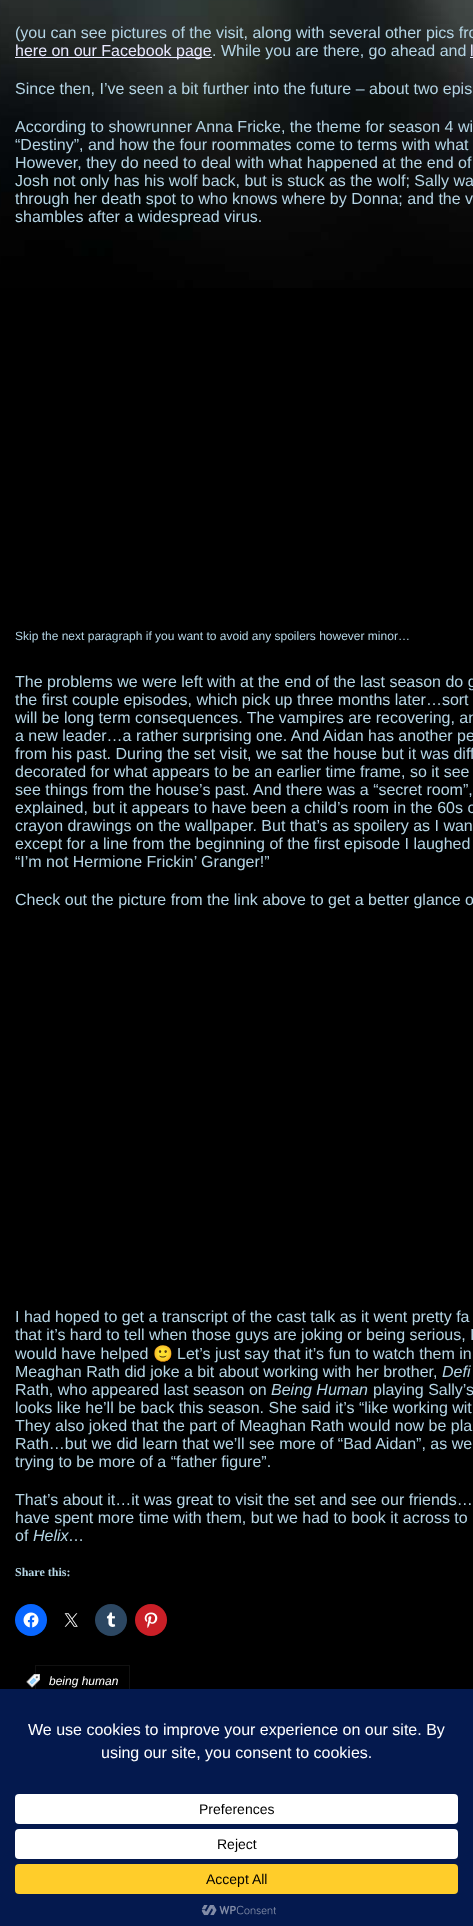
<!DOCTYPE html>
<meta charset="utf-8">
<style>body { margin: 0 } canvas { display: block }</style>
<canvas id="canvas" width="473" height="1926"></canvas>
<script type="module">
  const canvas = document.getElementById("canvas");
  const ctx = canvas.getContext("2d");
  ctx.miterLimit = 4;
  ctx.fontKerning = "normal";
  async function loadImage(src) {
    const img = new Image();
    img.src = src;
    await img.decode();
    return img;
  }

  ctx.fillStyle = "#000000";
  ctx.fillRect(0, 0, 473, 1926);
  ctx.drawImage(await loadImage("img1.png"), 0, 0, 473, 288);
  ctx.font = "16px Liberation Sans";
  ctx.fillStyle = "#b4d4e4";
  ctx.fillText("(you can see pictures of the visit, along with several other pics fro", 15, 38);
  ctx.fillStyle = "#e9e9ff";
  ctx.fillRect(15, 57, 197, 1);
  ctx.fillText("here on our Facebook page", 15, 56);
  ctx.fillStyle = "#b4d4e4";
  ctx.fillText(". While you are there, go ahead and", 212, 56);
  ctx.fillStyle = "#e9e9ff";
  ctx.fillText("l", 470, 56);
  ctx.fillRect(470, 57, 3, 1);
  ctx.fillStyle = "#b4d4e4";
  ctx.fillText("Since then, I’ve seen a bit further into the future – about two epis", 15, 94);
  ctx.fillText("According to showrunner Anna Fricke, the theme for season 4 wi", 15, 132);
  ctx.fillText("“Destiny”, and how the four roommates come to terms with what", 15, 150);
  ctx.fillText("However, they do need to deal with what happened at the end of", 15, 168);
  ctx.fillText("Josh not only has his wolf back, but is stuck as the wolf; Sally wa", 15, 186);
  ctx.fillText("through her death spot to who knows where by Donna; and the v", 15, 204);
  ctx.fillText("shambles after a widespread virus.", 15, 222);
  ctx.font = "12px Liberation Sans";
  ctx.fillText("Skip the next paragraph if you want to avoid any spoilers however minor…", 15, 640);
  ctx.font = "16px Liberation Sans";
  ctx.fillText("The problems we were left with at the end of the last season do g", 15, 687);
  ctx.fillText("the first couple episodes, which pick up three months later…sort", 15, 705);
  ctx.fillText("will be long term consequences. The vampires are recovering, an", 15, 723);
  ctx.fillText("a new leader…a rather surprising one. And Aidan has another pe", 15, 741);
  ctx.fillText("from his past. During the set visit, we sat the house but it was diff", 15, 759);
  ctx.fillText("decorated for what appears to be an earlier time frame, so it see", 15, 777);
  ctx.fillText("see things from the house’s past. And there was a “secret room”,", 15, 795);
  ctx.fillText("explained, but it appears to have been a child’s room in the 60s o", 15, 813);
  ctx.fillText("crayon drawings on the wallpaper. But that’s as spoilery as I wan", 15, 831);
  ctx.fillText("except for a line from the beginning of the first episode I laughed", 15, 849);
  ctx.fillText("“I’m not Hermione Frickin’ Granger!”", 15, 867);
  ctx.fillText("Check out the picture from the link above to get a better glance o", 15, 905);
  ctx.fillText("I had hoped to get a transcript of the cast talk as it went pretty fa", 15, 1322);
  ctx.fillText("that it’s hard to tell when those guys are joking or being serious, I", 15, 1340);
  ctx.fillText("would have helped", 15, 1359);
  ctx.font = "16px Noto Color Emoji";
  ctx.fillText("🙂", 153, 1359);
  ctx.font = "16px Liberation Sans";
  ctx.fillText("Let’s just say that it’s fun to watch them in", 177, 1359);
  ctx.fillText("Meaghan Rath did joke a bit about working with her brother,", 15, 1377);
  ctx.font = "italic 16px Liberation Sans";
  ctx.fillText("Defi", 442, 1377);
  ctx.font = "16px Liberation Sans";
  ctx.fillText("Rath, who appeared last season on", 15, 1395);
  ctx.font = "italic 16px Liberation Sans";
  ctx.fillText("Being Human", 271, 1395);
  ctx.font = "16px Liberation Sans";
  ctx.fillText("playing Sally’s", 373, 1395);
  ctx.fillText("looks like he’ll be back this season. She said it’s “like working wit", 15, 1413);
  ctx.fillText("They also joked that the part of Meaghan Rath would now be pla", 15, 1431);
  ctx.fillText("Rath…but we did learn that we’ll see more of “Bad Aidan”, as we", 15, 1449);
  ctx.fillText("trying to be more of a “father figure”.", 15, 1467);
  ctx.fillText("That’s about it…it was great to visit the set and see our friends…", 15, 1505);
  ctx.fillText("have spent more time with them, but we had to book it across to", 15, 1523);
  ctx.fillText("of", 15, 1541);
  ctx.font = "italic 16px Liberation Sans";
  ctx.fillText("Helix", 33, 1541);
  ctx.font = "16px Liberation Sans";
  ctx.fillText("…", 68, 1541);
  ctx.font = "bold 12px Liberation Serif";
  ctx.fillText("Share this:", 15, 1576);
  ctx.fillStyle = "#0866ff";
  ctx.beginPath();
  ctx.arc(31, 1620, 16, 0, Math.PI * 2);
  ctx.fill();
  ctx.drawImage(await loadImage("img2.png"), 23, 1612, 16, 16);
  ctx.drawImage(await loadImage("img3.png"), 64, 1613, 14, 14);
  ctx.fillStyle = "#2c4762";
  ctx.beginPath();
  ctx.arc(111, 1620, 16, 0, Math.PI * 2);
  ctx.fill();
  ctx.drawImage(await loadImage("img4.png"), 106, 1612, 10, 15);
  ctx.fillStyle = "#ca1f27";
  ctx.beginPath();
  ctx.arc(151, 1620, 16, 0, Math.PI * 2);
  ctx.fill();
  ctx.drawImage(await loadImage("img5.png"), 144, 1612, 14, 16);
  ctx.fillStyle = "#111111";
  ctx.fillRect(35, 1665, 95, 1);
  ctx.fillRect(35, 1665, 1, 32);
  ctx.drawImage(await loadImage("img6.png"), 26, 1674, 14, 14);
  ctx.font = "italic 12px Liberation Sans";
  ctx.fillStyle = "#ffffff";
  ctx.fillText("being human", 49, 1685);
  ctx.fillStyle = "#111111";
  ctx.fillRect(129, 1665, 1, 32);
  ctx.fillStyle = "#04194e";
  ctx.fillRect(0, 1689, 473, 237);
  ctx.font = "16px Liberation Sans";
  ctx.fillStyle = "#ffffff";
  ctx.fillText("We use cookies to improve your experience on our site. By", 28, 1735);
  ctx.fillText("using our site, you consent to cookies.", 101, 1758);
  ctx.beginPath();
  ctx.roundRect(15, 1794, 443, 30, 4);
  ctx.fill();
  ctx.font = "14px Liberation Sans";
  ctx.fillStyle = "#000000";
  ctx.fillText("Preferences", 199, 1814);
  ctx.fillStyle = "#ffffff";
  ctx.beginPath();
  ctx.roundRect(15, 1829, 443, 30, 4);
  ctx.fill();
  ctx.fillStyle = "#000000";
  ctx.fillText("Reject", 217, 1849);
  ctx.fillStyle = "#ffcd2a";
  ctx.beginPath();
  ctx.roundRect(15, 1864, 443, 30, 4);
  ctx.fill();
  ctx.fillStyle = "#000000";
  ctx.fillText("Accept All", 206, 1884);
  ctx.drawImage(await loadImage("img7.png"), 201, 1905, 75, 11);
</script>
